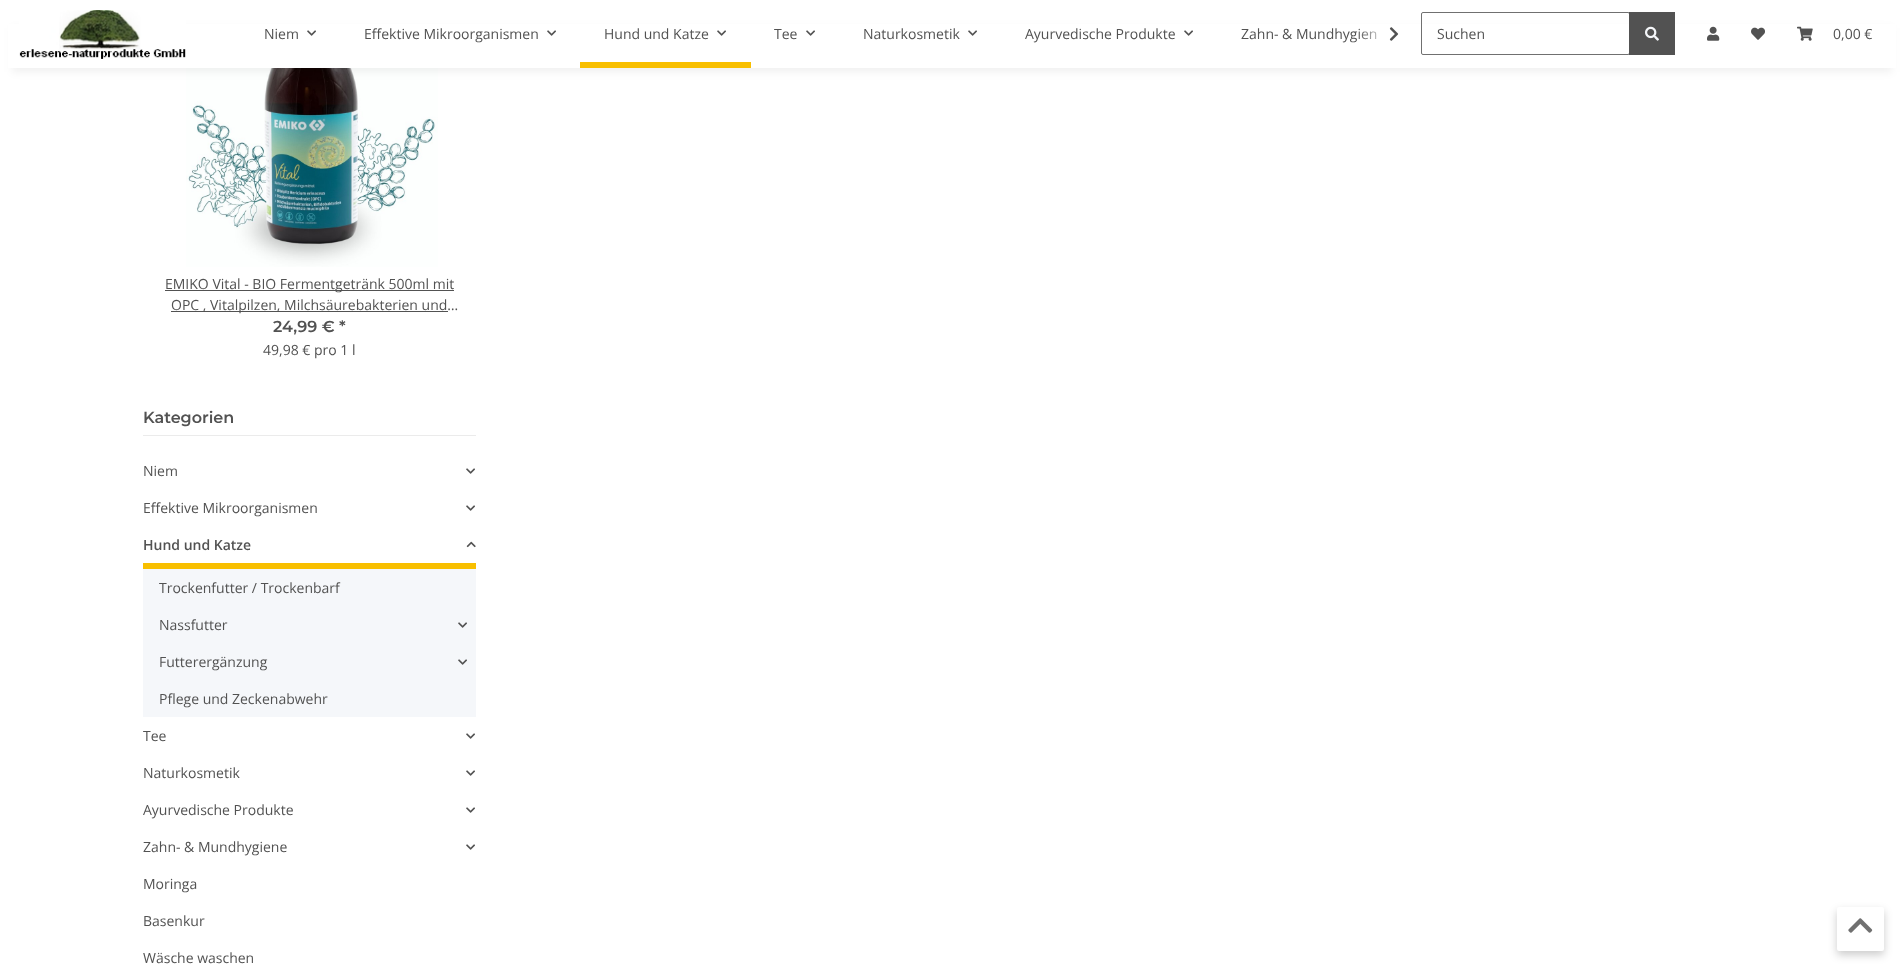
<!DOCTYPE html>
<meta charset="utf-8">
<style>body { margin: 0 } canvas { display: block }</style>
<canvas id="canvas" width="1904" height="971"></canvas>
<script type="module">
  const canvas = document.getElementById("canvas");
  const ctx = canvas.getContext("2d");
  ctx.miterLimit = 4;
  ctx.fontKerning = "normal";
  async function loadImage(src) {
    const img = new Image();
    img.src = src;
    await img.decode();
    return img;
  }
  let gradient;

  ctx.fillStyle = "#ffffff";
  ctx.fillRect(0, 0, 1904, 971);
  ctx.drawImage(await loadImage("img8.png"), 186, 68, 252, 199);
  ctx.fillStyle = "rgba(0, 0, 0, 0.06)";
  ctx.filter = "blur(4.5px)";
  ctx.beginPath();
  ctx.rect(12, 28, 1880, 44);
  ctx.fill();
  ctx.filter = "none";
  ctx.fillStyle = "#ffffff";
  ctx.fillRect(8, 24, 1888, 44);
  ctx.drawImage(await loadImage("img1.png"), 19, 10, 167, 49);
  ctx.font = "14px Open Sans";
  ctx.fillStyle = "#525252";
  ctx.fillText("Niem", 264, 39);
  ctx.drawImage(await loadImage("img2.png"), 307, 30, 9, 6);
  ctx.fillText("Effektive Mikroorganismen", 364, 39);
  ctx.drawImage(await loadImage("img2.png"), 547, 30, 9, 6);
  ctx.fillText("Hund und Katze", 604, 39);
  ctx.drawImage(await loadImage("img2.png"), 717, 30, 9, 6);
  ctx.fillStyle = "#f8bf00";
  ctx.fillRect(580, 62, 171, 6);
  ctx.fillStyle = "#525252";
  ctx.fillText("Tee", 774, 39);
  ctx.drawImage(await loadImage("img2.png"), 806, 30, 9, 6);
  ctx.fillText("Naturkosmetik", 863, 39);
  ctx.drawImage(await loadImage("img2.png"), 968, 30, 9, 6);
  ctx.fillText("Ayurvedische Produkte", 1025, 39);
  ctx.drawImage(await loadImage("img2.png"), 1184, 30, 9, 6);
  ctx.fillText("Zahn- & Mundhygien", 1241, 39);
  gradient = ctx.createLinearGradient(1357, 34, 1405, 34);
  gradient.addColorStop(0, "rgba(255, 255, 255, 0.01)");
  gradient.addColorStop(0.7, "#ffffff");
  ctx.fillStyle = gradient;
  ctx.fillRect(1358, 29, 19, 11);
  ctx.drawImage(await loadImage("img3.png"), 1389, 27, 10, 14);
  ctx.beginPath();
  ctx.roundRect(1421.5, 12.5, 208, 42, 1.5);
  ctx.strokeStyle = "#707070";
  ctx.stroke();
  ctx.fillStyle = "#525252";
  ctx.fillText("Suchen", 1437, 39);
  ctx.fillRect(1629, 12, 46, 43);
  ctx.drawImage(await loadImage("img4.png"), 1645, 26, 14, 15);
  ctx.drawImage(await loadImage("img5.png"), 1707, 26, 13, 15);
  ctx.drawImage(await loadImage("img6.png"), 1751, 27, 14, 13);
  ctx.drawImage(await loadImage("img7.png"), 1797, 26, 16, 15);
  ctx.fillText("0,00 €", 1833, 39);
  ctx.fillRect(165, 290, 289, 1);
  ctx.fillText("EMIKO Vital - BIO Fermentgetränk 500ml mit", 165, 289);
  ctx.fillRect(171, 311, 277, 1);
  ctx.fillText("OPC , Vitalpilzen, Milchsäurebakterien und…", 171, 310);
  ctx.font = "600 16px Montserrat";
  ctx.fillText("24,99 € *", 273, 332);
  ctx.font = "14px Open Sans";
  ctx.fillText("49,98 € pro 1 l", 263, 355);
  ctx.fillStyle = "#ebebeb";
  ctx.fillRect(143, 435, 333, 1);
  ctx.font = "600 16px Montserrat";
  ctx.fillStyle = "#525252";
  ctx.fillText("Kategorien", 143, 423);
  ctx.font = "14px Open Sans";
  ctx.fillText("Niem", 143, 476);
  ctx.drawImage(await loadImage("img2.png"), 466, 468, 9, 6);
  ctx.fillText("Effektive Mikroorganismen", 143, 513);
  ctx.drawImage(await loadImage("img2.png"), 466, 505, 9, 6);
  ctx.fillStyle = "#f8bf00";
  ctx.fillRect(143, 563, 333, 6);
  ctx.font = "600 14px Open Sans";
  ctx.fillStyle = "#525252";
  ctx.fillText("Hund und Katze", 143, 550);
  ctx.drawImage(await loadImage("img9.png"), 466, 541, 10, 7);
  ctx.fillStyle = "#f5f7fa";
  ctx.fillRect(143, 569, 333, 148);
  ctx.font = "14px Open Sans";
  ctx.fillStyle = "#525252";
  ctx.fillText("Trockenfutter / Trockenbarf", 159, 593);
  ctx.fillText("Nassfutter", 159, 630);
  ctx.drawImage(await loadImage("img10.png"), 458, 622, 9, 6);
  ctx.fillText("Futterergänzung", 159, 667);
  ctx.drawImage(await loadImage("img10.png"), 458, 659, 9, 6);
  ctx.fillText("Pflege und Zeckenabwehr", 159, 704);
  ctx.fillText("Tee", 143, 741);
  ctx.drawImage(await loadImage("img2.png"), 466, 733, 9, 6);
  ctx.fillText("Naturkosmetik", 143, 778);
  ctx.drawImage(await loadImage("img2.png"), 466, 770, 9, 6);
  ctx.fillText("Ayurvedische Produkte", 143, 815);
  ctx.drawImage(await loadImage("img2.png"), 466, 807, 9, 6);
  ctx.fillText("Zahn- & Mundhygiene", 143, 852);
  ctx.drawImage(await loadImage("img2.png"), 466, 844, 9, 6);
  ctx.fillText("Moringa", 143, 889);
  ctx.fillText("Basenkur", 143, 926);
  ctx.fillText("Wäsche waschen", 143, 963);
  ctx.fillStyle = "rgba(0, 0, 0, 0.2)";
  ctx.filter = "blur(4px)";
  ctx.beginPath();
  ctx.roundRect(1837, 911, 47, 44, 2);
  ctx.fill();
  ctx.filter = "none";
  ctx.fillStyle = "#ffffff";
  ctx.beginPath();
  ctx.roundRect(1837, 907, 47, 44, 2);
  ctx.fill();
  ctx.drawImage(await loadImage("img11.png"), 1848, 918, 25, 15);
</script>
